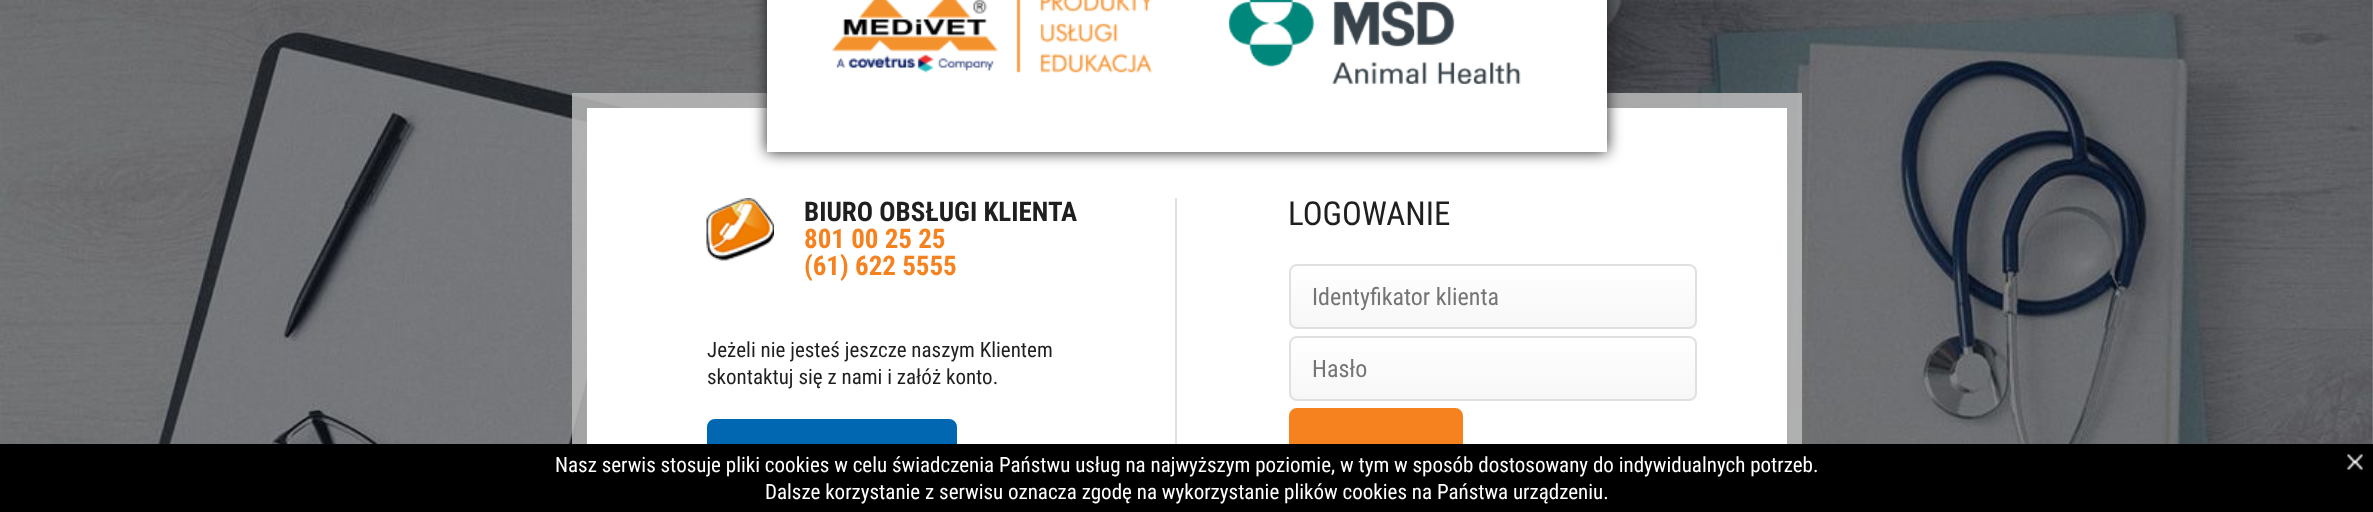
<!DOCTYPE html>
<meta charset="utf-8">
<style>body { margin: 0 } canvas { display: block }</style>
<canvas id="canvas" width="2373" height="512"></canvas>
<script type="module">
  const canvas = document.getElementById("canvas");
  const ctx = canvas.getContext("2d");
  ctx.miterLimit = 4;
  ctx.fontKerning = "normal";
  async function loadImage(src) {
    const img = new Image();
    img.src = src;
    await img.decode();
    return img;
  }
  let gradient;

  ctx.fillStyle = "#ffffff";
  ctx.fillRect(0, 0, 2373, 512);
  ctx.drawImage(await loadImage("img1.png"), 0, 0, 2373, 444);
  ctx.fillStyle = "rgba(187, 187, 187, 0.85)";
  ctx.fillRect(572, 93, 1230, 351);
  ctx.fillStyle = "#ffffff";
  ctx.fillRect(587, 108, 1200, 336);
  ctx.fillStyle = "#222222";
  ctx.filter = "blur(7.5px)";
  ctx.beginPath();
  ctx.rect(767, -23, 840, 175);
  ctx.fill();
  ctx.filter = "none";
  ctx.fillStyle = "#ffffff";
  ctx.fillRect(767, 0, 840, 152);
  ctx.drawImage(await loadImage("img2.png"), 832, 0, 321, 73);
  ctx.drawImage(await loadImage("img3.png"), 1228, 0, 293, 84);
  ctx.fillStyle = "#e0e0e0";
  ctx.fillRect(1175, 198, 2, 246);
  ctx.drawImage(await loadImage("img4.png"), 706, 198, 68, 63);
  ctx.font = "bold 27px Roboto Condensed";
  ctx.fillStyle = "#1f1f1f";
  ctx.fillText("BIURO OBSŁUGI KLIENTA", 804, 221);
  ctx.fillStyle = "#f5821f";
  ctx.fillText("801 00 25 25", 804, 248);
  ctx.fillText("(61) 622 5555", 804, 275);
  ctx.font = "21px Roboto Condensed";
  ctx.fillStyle = "#1f1f1f";
  ctx.fillText("Jeżeli nie jesteś jeszcze naszym Klientem", 707, 357);
  ctx.fillText("skontaktuj się z nami i załóż konto.", 707, 384);
  ctx.fillStyle = "#0167b1";
  ctx.beginPath();
  ctx.roundRect(708, 420, 248, 62, 7);
  ctx.fill();
  ctx.strokeStyle = "#0167b1";
  ctx.lineWidth = 2;
  ctx.stroke();
  ctx.font = "33px Roboto Condensed";
  ctx.fillStyle = "#1f1f1f";
  ctx.fillText("LOGOWANIE", 1288, 225);
  ctx.save();
  ctx.beginPath();
  ctx.roundRect(1289, 264, 408, 65, 8);
  ctx.clip();
  gradient = ctx.createLinearGradient(1493, 265, 1493, 327);
  gradient.addColorStop(0, "#ffffff");
  gradient.addColorStop(1, "#f7f7f7");
  ctx.fillStyle = gradient;
  ctx.fillRect(1289, 266, 408, 61);
  ctx.restore();
  ctx.beginPath();
  ctx.roundRect(1290, 265, 406, 63, 7);
  ctx.strokeStyle = "#e0e0e0";
  ctx.stroke();
  ctx.font = "24px Roboto Condensed";
  ctx.fillStyle = "#757575";
  ctx.fillText("Identyfikator klienta", 1312, 305);
  ctx.save();
  ctx.beginPath();
  ctx.roundRect(1289, 336, 408, 65, 8);
  ctx.clip();
  gradient = ctx.createLinearGradient(1493, 337, 1493, 399);
  gradient.addColorStop(0, "#ffffff");
  gradient.addColorStop(1, "#f7f7f7");
  ctx.fillStyle = gradient;
  ctx.fillRect(1289, 338, 408, 61);
  ctx.restore();
  ctx.beginPath();
  ctx.roundRect(1290, 337, 406, 63, 7);
  ctx.stroke();
  ctx.fillText("Hasło", 1312, 377);
  ctx.fillStyle = "#f5821f";
  ctx.beginPath();
  ctx.roundRect(1290, 409, 172, 63, 7);
  ctx.fill();
  ctx.strokeStyle = "#f5821f";
  ctx.stroke();
  ctx.fillStyle = "#000000";
  ctx.fillRect(0, 444, 2373, 68);
  ctx.font = "21px Roboto Condensed";
  ctx.fillStyle = "#ffffff";
  ctx.fillText("Nasz serwis stosuje pliki cookies w celu świadczenia Państwu usług na najwyższym poziomie, w tym w sposób dostosowany do indywidualnych potrzeb.", 555, 472);
  ctx.fillText("Dalsze korzystanie z serwisu oznacza zgodę na wykorzystanie plików cookies na Państwa urządzeniu.", 765, 499);
  ctx.drawImage(await loadImage("img5.png"), 2347, 454, 16, 16);
</script>
